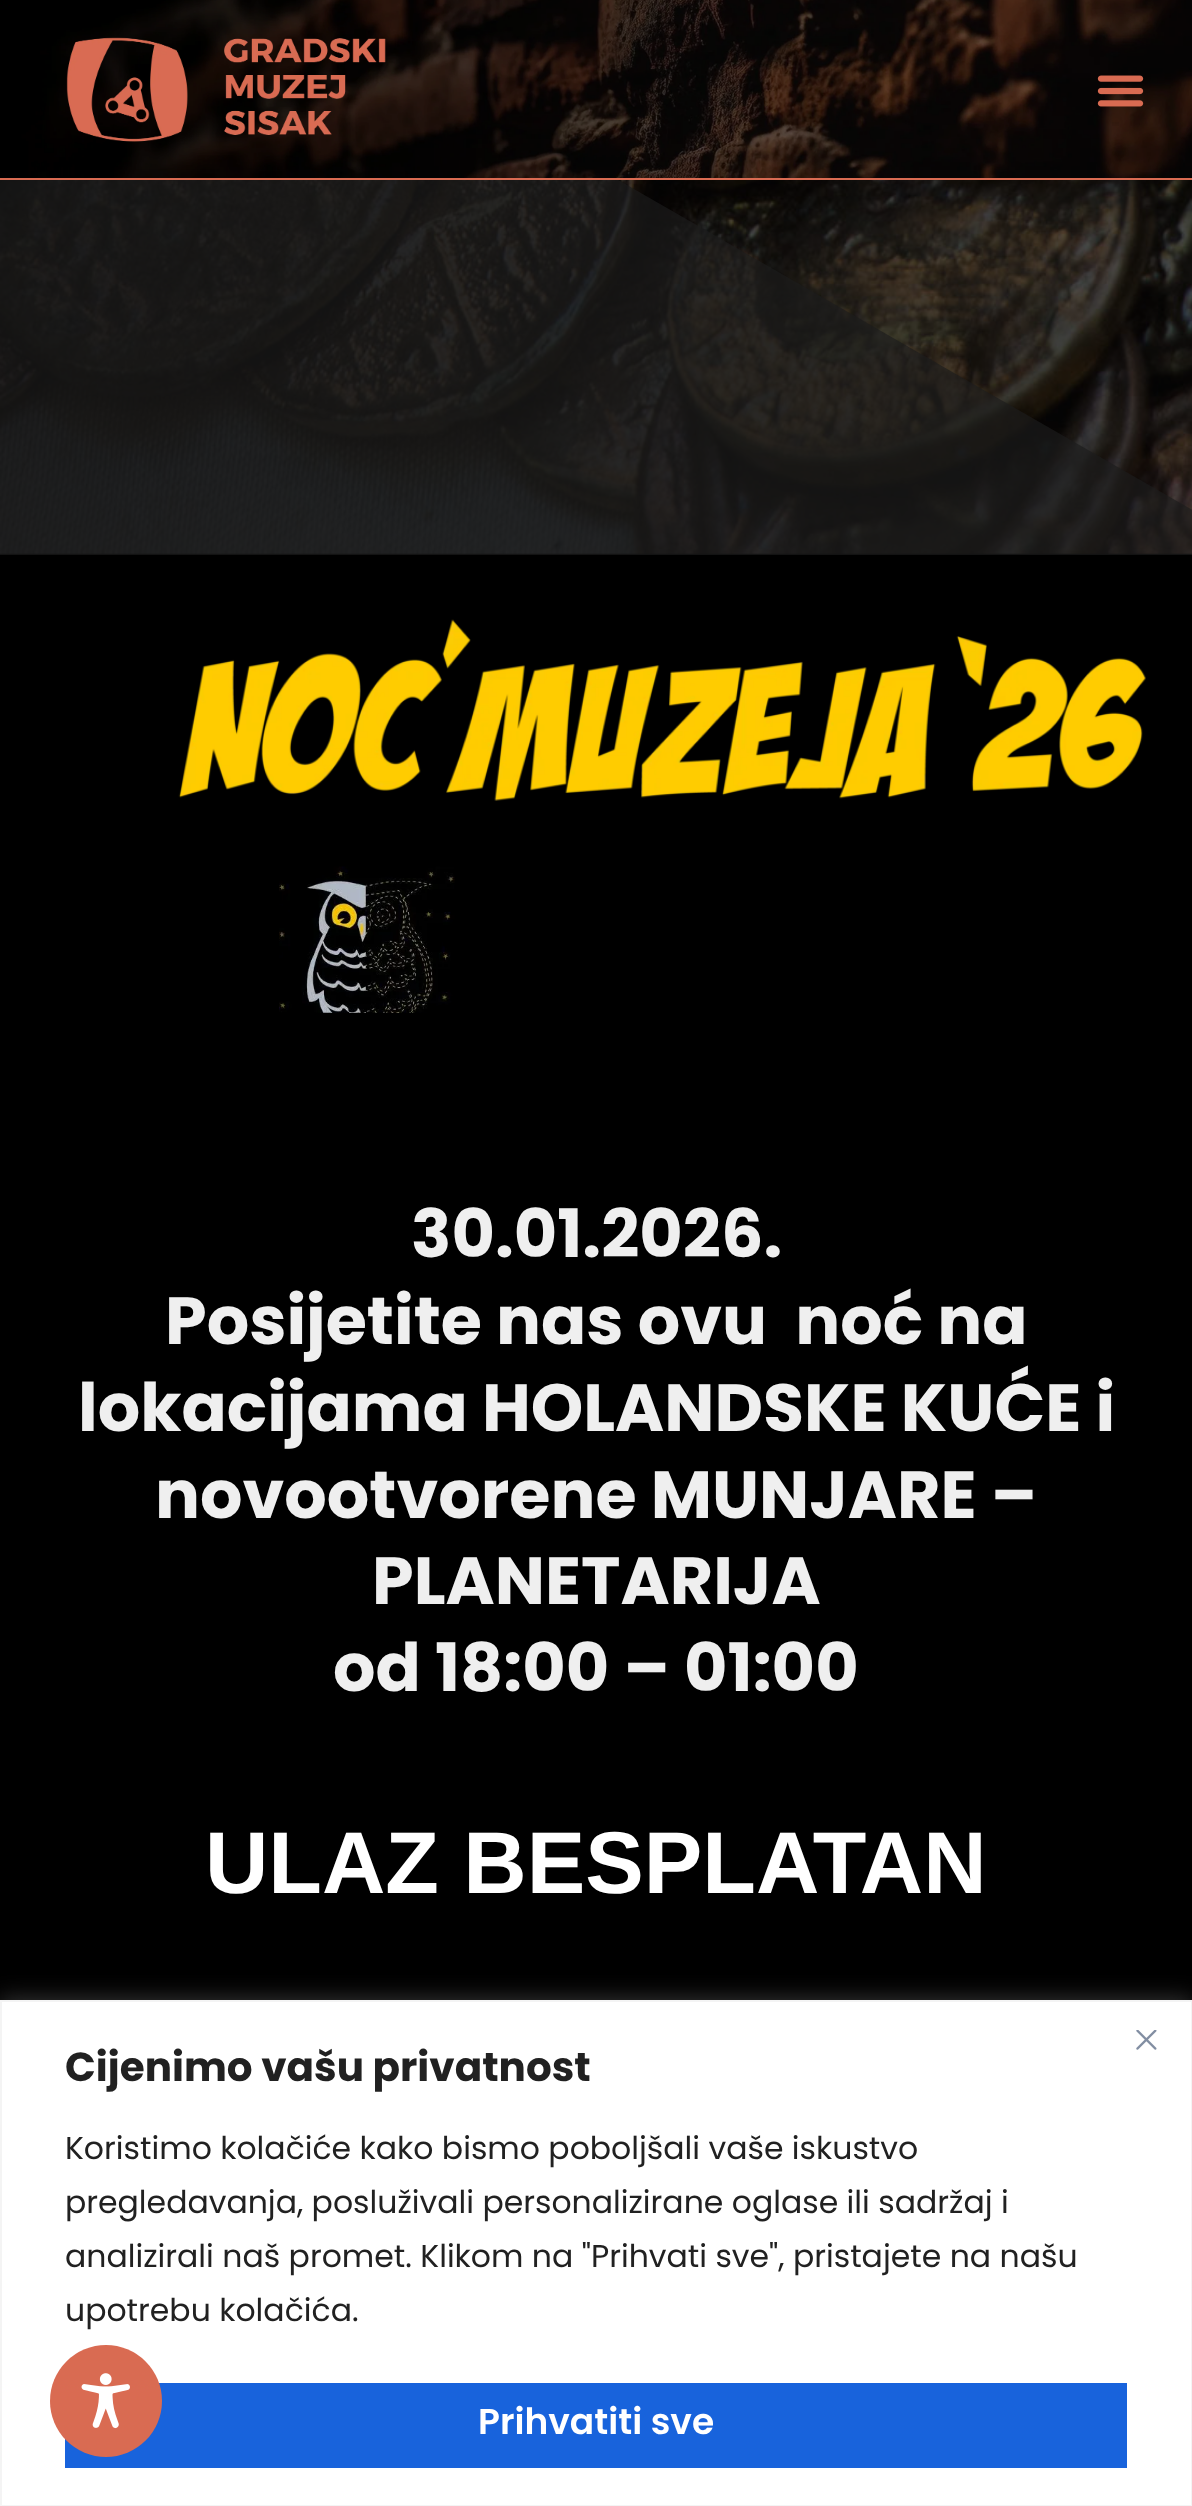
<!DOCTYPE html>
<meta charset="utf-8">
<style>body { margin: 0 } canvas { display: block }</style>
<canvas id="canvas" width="1192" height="2506"></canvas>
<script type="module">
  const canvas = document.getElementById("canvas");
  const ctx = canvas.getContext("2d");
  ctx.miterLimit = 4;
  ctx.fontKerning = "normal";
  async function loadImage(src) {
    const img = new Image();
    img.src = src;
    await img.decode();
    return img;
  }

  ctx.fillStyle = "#000000";
  ctx.fillRect(0, 0, 1192, 2506);
  ctx.drawImage(await loadImage("img4.png"), 0, 180, 1192, 374);
  ctx.fillStyle = "rgba(28, 28, 28, 0.67)";
  ctx.beginPath();
  ctx.moveTo(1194, 511);
  ctx.lineTo(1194, 555);
  ctx.lineTo(-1, 555);
  ctx.lineTo(-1, -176);
  ctx.closePath();
  ctx.fill();
  ctx.drawImage(await loadImage("img1.png"), 0, 0, 1192, 178);
  ctx.fillStyle = "#d96b52";
  ctx.fillRect(0, 178, 1192, 2);
  ctx.drawImage(await loadImage("img2.png"), 66, 37, 320, 105);
  ctx.fillStyle = "rgba(0, 0, 0, 0.05)";
  ctx.fillRect(1112, 122, 7, 4);
  ctx.drawImage(await loadImage("img3.png"), 1097, 75, 47, 32);
  ctx.drawImage(await loadImage("img5.png"), 178, 619, 968, 182);
  ctx.drawImage(await loadImage("img6.png"), 279, 866, 176, 147);
  ctx.font = "bold 66.75px Poppins";
  ctx.fillStyle = "#efefef";
  ctx.fillText("30.01.2026.", 411, 1257);
  ctx.fillText("Posijetite nas ovu  noć na", 165, 1344);
  ctx.fillText("lokacijama HOLANDSKE KUĆE i", 78, 1431);
  ctx.fillText("novootvorene MUNJARE –", 155, 1518);
  ctx.fillText("PLANETARIJA", 372, 1604);
  ctx.fillText("od 18:00 – 01:00", 333, 1691);
  ctx.font = "bold 87.75px Liberation Sans";
  ctx.fillStyle = "#ffffff";
  ctx.fillText("ULAZ BESPLATAN", 205, 1893);
  ctx.fillStyle = "rgba(172, 171, 171, 0.3)";
  ctx.filter = "blur(11px)";
  ctx.beginPath();
  ctx.rect(0, 1998, 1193, 506);
  ctx.fill();
  ctx.filter = "none";
  ctx.fillStyle = "#ffffff";
  ctx.beginPath();
  ctx.rect(1, 2001, 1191, 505);
  ctx.fill();
  ctx.strokeStyle = "#f4f4f4";
  ctx.lineWidth = 2;
  ctx.stroke();
  ctx.drawImage(await loadImage("img7.png"), 1136, 2030, 21, 20);
  ctx.font = "bold 40.5px Poppins";
  ctx.fillStyle = "#212121";
  ctx.fillText("Cijenimo vašu privatnost", 65, 2081);
  ctx.font = "31.5px Poppins";
  ctx.fillText("Koristimo kolačiće kako bismo poboljšali vaše iskustvo", 65, 2159);
  ctx.fillText("pregledavanja, posluživali personalizirane oglase ili sadržaj i", 65, 2213);
  ctx.fillText("analizirali naš promet. Klikom na \"Prihvati sve\", pristajete na našu", 65, 2267);
  ctx.fillText("upotrebu kolačića.", 65, 2321);
  ctx.fillStyle = "#1863dc";
  ctx.fillRect(65, 2383, 1062, 85);
  ctx.font = "600 36px Poppins";
  ctx.fillStyle = "#ffffff";
  ctx.fillText("Prihvatiti sve", 478, 2434);
  ctx.fillStyle = "#d96b52";
  ctx.beginPath();
  ctx.arc(106, 2401, 56, 0, Math.PI * 2);
  ctx.fill();
  ctx.drawImage(await loadImage("img8.png"), 81, 2373, 49, 56);
</script>
